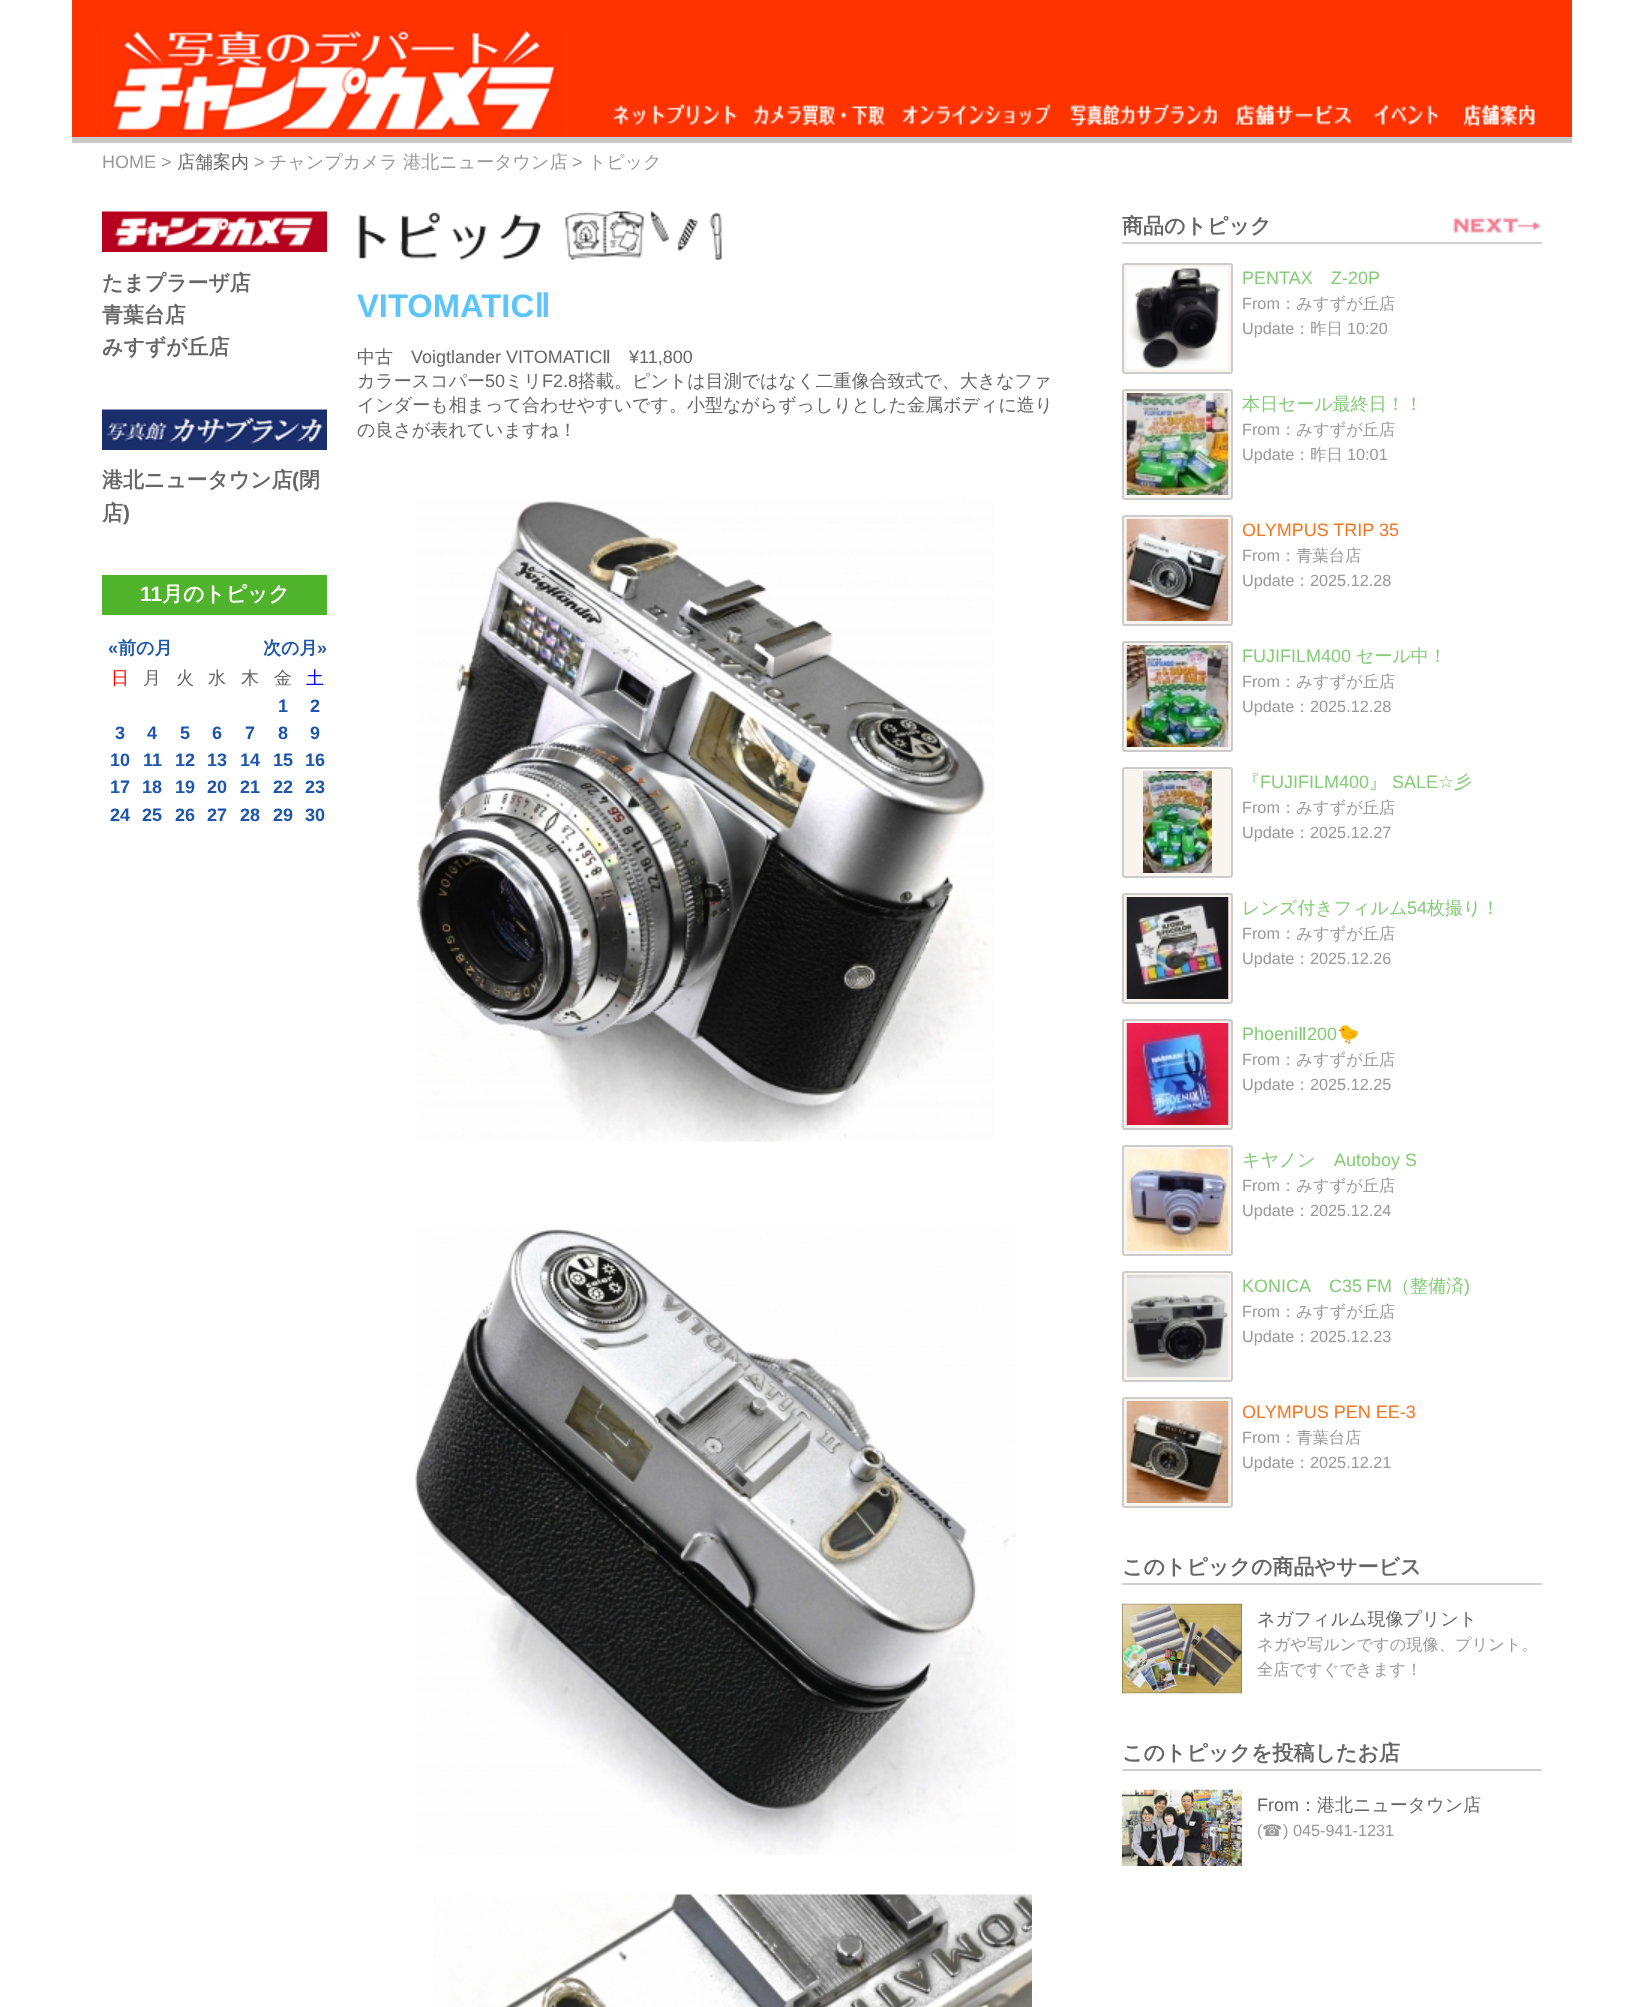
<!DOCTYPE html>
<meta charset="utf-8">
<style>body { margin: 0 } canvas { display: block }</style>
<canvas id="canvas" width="1643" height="2007"></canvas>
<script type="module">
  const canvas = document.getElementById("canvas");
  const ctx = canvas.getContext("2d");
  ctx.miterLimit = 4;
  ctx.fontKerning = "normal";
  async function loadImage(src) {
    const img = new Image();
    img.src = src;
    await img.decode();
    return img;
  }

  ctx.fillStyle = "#ffffff";
  ctx.fillRect(0, 0, 1643, 2007);
  ctx.fillStyle = "#ff3300";
  ctx.fillRect(72, 0, 1500, 137);
  ctx.fillStyle = "#c9c9c9";
  ctx.fillRect(72, 137, 1500, 6);
  ctx.drawImage(await loadImage("img1.png"), 102, 30, 465, 104);
  ctx.drawImage(await loadImage("img2.png"), 613, 103, 124, 22);
  ctx.drawImage(await loadImage("img3.png"), 753, 104, 132, 23);
  ctx.drawImage(await loadImage("img4.png"), 902, 103, 149, 22);
  ctx.drawImage(await loadImage("img5.png"), 1070, 103, 147, 24);
  ctx.drawImage(await loadImage("img6.png"), 1235, 104, 117, 21);
  ctx.drawImage(await loadImage("img7.png"), 1373, 104, 66, 21);
  ctx.drawImage(await loadImage("img8.png"), 1463, 104, 72, 23);
  ctx.font = "18px Liberation Sans";
  ctx.fillStyle = "#999999";
  ctx.fillText("HOME >", 102, 168);
  ctx.font = "500 18px WenQuanYi Zen Hei";
  ctx.fillStyle = "#666666";
  ctx.fillText("店舗案内", 177, 168);
  ctx.font = "18px Liberation Sans";
  ctx.fillStyle = "#999999";
  ctx.fillText(">", 254, 168);
  ctx.font = "500 18px WenQuanYi Zen Hei";
  ctx.fillText("チャンプカメラ 港北ニュータウン店", 269, 168);
  ctx.font = "18px Liberation Sans";
  ctx.fillText(">", 572, 168);
  ctx.font = "500 18px WenQuanYi Zen Hei";
  ctx.fillText("トピック", 588, 168);
  ctx.drawImage(await loadImage("img9.png"), 102, 211, 225, 41);
  ctx.font = "bold 20.9px WenQuanYi Zen Hei";
  ctx.fillStyle = "#666666";
  ctx.fillText("たまプラーザ店", 102, 290);
  ctx.fillText("青葉台店", 102, 322);
  ctx.fillText("みすずが丘店", 102, 354);
  ctx.drawImage(await loadImage("img10.png"), 102, 409, 225, 41);
  ctx.fillText("港北ニュータウン店", 102, 487);
  ctx.font = "bold 20.9px Liberation Sans";
  ctx.fillText("(", 292, 487);
  ctx.font = "bold 20.9px WenQuanYi Zen Hei";
  ctx.fillText("閉", 299, 487);
  ctx.fillText("店", 102, 520);
  ctx.font = "bold 20.9px Liberation Sans";
  ctx.fillText(")", 123, 520);
  ctx.fillStyle = "#4fb32b";
  ctx.fillRect(102, 575, 225, 40);
  ctx.fillStyle = "#ffffff";
  ctx.fillText("11", 140, 601);
  ctx.font = "bold 20.9px WenQuanYi Zen Hei";
  ctx.fillText("月のトピック", 162, 601);
  ctx.font = "bold 18px Liberation Sans";
  ctx.fillStyle = "#1d56ac";
  ctx.fillText("«", 108, 654);
  ctx.font = "bold 18px WenQuanYi Zen Hei";
  ctx.fillText("前の月", 118, 654);
  ctx.fillText("次の月", 263, 654);
  ctx.font = "bold 18px Liberation Sans";
  ctx.fillText("»", 317, 654);
  ctx.font = "500 18px WenQuanYi Zen Hei";
  ctx.fillStyle = "#ff0000";
  ctx.fillText("日", 111, 684);
  ctx.fillStyle = "#666666";
  ctx.fillText("月", 143, 684);
  ctx.fillText("火", 176, 684);
  ctx.fillText("水", 208, 684);
  ctx.fillText("木", 241, 684);
  ctx.fillText("金", 274, 684);
  ctx.fillStyle = "#0000ff";
  ctx.fillText("土", 306, 684);
  ctx.font = "bold 18px Liberation Sans";
  ctx.fillStyle = "#1d56ac";
  ctx.fillText("1", 278, 712);
  ctx.fillText("2", 310, 712);
  ctx.fillText("3", 115, 739);
  ctx.fillText("4", 147, 739);
  ctx.fillText("5", 180, 739);
  ctx.fillText("6", 212, 739);
  ctx.fillText("7", 245, 739);
  ctx.fillText("8", 278, 739);
  ctx.fillText("9", 310, 739);
  ctx.fillText("10", 110, 766);
  ctx.fillText("11", 143, 766);
  ctx.fillText("12", 175, 766);
  ctx.fillText("13", 207, 766);
  ctx.fillText("14", 240, 766);
  ctx.fillText("15", 273, 766);
  ctx.fillText("16", 305, 766);
  ctx.fillText("17", 110, 793);
  ctx.fillText("18", 142, 793);
  ctx.fillText("19", 175, 793);
  ctx.fillText("20", 207, 793);
  ctx.fillText("21", 240, 793);
  ctx.fillText("22", 273, 793);
  ctx.fillText("23", 305, 793);
  ctx.fillText("24", 110, 821);
  ctx.fillText("25", 142, 821);
  ctx.fillText("26", 175, 821);
  ctx.fillText("27", 207, 821);
  ctx.fillText("28", 240, 821);
  ctx.fillText("29", 273, 821);
  ctx.fillText("30", 305, 821);
  ctx.drawImage(await loadImage("img11.png"), 358, 211, 364, 49);
  ctx.font = "bold 32.75px Liberation Sans";
  ctx.fillStyle = "#5ec5fb";
  ctx.fillText("VITOMATIC", 357, 317);
  ctx.font = "bold 32.75px DejaVu Sans";
  ctx.fillText("Ⅱ", 534, 317);
  ctx.font = "500 18px WenQuanYi Zen Hei";
  ctx.fillStyle = "#666666";
  ctx.fillText("中古", 357, 363);
  ctx.font = "18px Liberation Sans";
  ctx.fillText("Voigtlander VITOMATIC", 411, 363);
  ctx.font = "18px DejaVu Sans";
  ctx.fillText("Ⅱ", 602, 363);
  ctx.font = "18px Liberation Sans";
  ctx.fillText("¥11,800", 629, 363);
  ctx.font = "500 18px WenQuanYi Zen Hei";
  ctx.fillText("カラースコパー", 357, 387);
  ctx.font = "18px Liberation Sans";
  ctx.fillText("50", 485, 387);
  ctx.font = "500 18px WenQuanYi Zen Hei";
  ctx.fillText("ミリ", 505, 387);
  ctx.font = "18px Liberation Sans";
  ctx.fillText("F2.8", 542, 387);
  ctx.font = "500 18px WenQuanYi Zen Hei";
  ctx.fillText("搭載。ピントは目測ではなく二重像合致式で、大きなファ", 578, 387);
  ctx.fillText("インダーも相まって合わせやすいです。小型ながらずっしりとした金属ボディに造り", 357, 411);
  ctx.fillText("の良さが表れていますね！", 357, 436);
  ctx.drawImage(await loadImage("img12.png"), 416, 500, 578, 642);
  ctx.drawImage(await loadImage("img13.png"), 415, 1229, 601, 627);
  ctx.drawImage(await loadImage("img14.png"), 433, 1894, 599, 113);
  ctx.fillStyle = "#cfcfcf";
  ctx.fillRect(1122, 242, 420, 2);
  ctx.font = "bold 21px WenQuanYi Zen Hei";
  ctx.fillStyle = "#666666";
  ctx.fillText("商品のトピック", 1122, 233);
  ctx.drawImage(await loadImage("img15.png"), 1453, 217, 88, 16);
  ctx.fillStyle = "#f9f4ee";
  ctx.beginPath();
  ctx.roundRect(1123, 264, 109, 109, 2);
  ctx.fill();
  ctx.strokeStyle = "#cccccc";
  ctx.lineWidth = 2;
  ctx.stroke();
  ctx.drawImage(await loadImage("img16.png"), 1126, 267, 103, 102);
  ctx.font = "18px Liberation Sans";
  ctx.fillStyle = "#84cc76";
  ctx.fillText("PENTAX", 1242, 284);
  ctx.fillText("Z-20P", 1331, 284);
  ctx.font = "16.25px Liberation Sans";
  ctx.fillStyle = "#999999";
  ctx.fillText("From", 1242, 309);
  ctx.font = "500 16.25px WenQuanYi Zen Hei";
  ctx.fillText("：みすずが丘店", 1280, 309);
  ctx.font = "16.25px Liberation Sans";
  ctx.fillText("Update", 1242, 334);
  ctx.font = "500 16.25px WenQuanYi Zen Hei";
  ctx.fillText("：昨日", 1294, 334);
  ctx.font = "16.25px Liberation Sans";
  ctx.fillText("10:20", 1347, 334);
  ctx.fillStyle = "#f9f4ee";
  ctx.beginPath();
  ctx.roundRect(1123, 390, 109, 109, 2);
  ctx.fill();
  ctx.stroke();
  ctx.drawImage(await loadImage("img17.png"), 1126, 393, 103, 102);
  ctx.font = "500 18px WenQuanYi Zen Hei";
  ctx.fillStyle = "#84cc76";
  ctx.fillText("本日セール最終日！！", 1242, 410);
  ctx.font = "16.25px Liberation Sans";
  ctx.fillStyle = "#999999";
  ctx.fillText("From", 1242, 435);
  ctx.font = "500 16.25px WenQuanYi Zen Hei";
  ctx.fillText("：みすずが丘店", 1280, 435);
  ctx.font = "16.25px Liberation Sans";
  ctx.fillText("Update", 1242, 460);
  ctx.font = "500 16.25px WenQuanYi Zen Hei";
  ctx.fillText("：昨日", 1294, 460);
  ctx.font = "16.25px Liberation Sans";
  ctx.fillText("10:01", 1347, 460);
  ctx.fillStyle = "#f9f4ee";
  ctx.beginPath();
  ctx.roundRect(1123, 516, 109, 109, 2);
  ctx.fill();
  ctx.stroke();
  ctx.drawImage(await loadImage("img18.png"), 1126, 519, 103, 102);
  ctx.font = "18px Liberation Sans";
  ctx.fillStyle = "#f57621";
  ctx.fillText("OLYMPUS TRIP 35", 1242, 536);
  ctx.font = "16.25px Liberation Sans";
  ctx.fillStyle = "#999999";
  ctx.fillText("From", 1242, 561);
  ctx.font = "500 16.25px WenQuanYi Zen Hei";
  ctx.fillText("：青葉台店", 1280, 561);
  ctx.font = "16.25px Liberation Sans";
  ctx.fillText("Update", 1242, 586);
  ctx.font = "500 16.25px WenQuanYi Zen Hei";
  ctx.fillText("：", 1294, 586);
  ctx.font = "16.25px Liberation Sans";
  ctx.fillText("2025.12.28", 1310, 586);
  ctx.fillStyle = "#f9f4ee";
  ctx.beginPath();
  ctx.roundRect(1123, 642, 109, 109, 2);
  ctx.fill();
  ctx.stroke();
  ctx.drawImage(await loadImage("img19.png"), 1126, 645, 103, 102);
  ctx.font = "18px Liberation Sans";
  ctx.fillStyle = "#84cc76";
  ctx.fillText("FUJIFILM400", 1242, 662);
  ctx.font = "500 18px WenQuanYi Zen Hei";
  ctx.fillText("セール中！", 1356, 662);
  ctx.font = "16.25px Liberation Sans";
  ctx.fillStyle = "#999999";
  ctx.fillText("From", 1242, 687);
  ctx.font = "500 16.25px WenQuanYi Zen Hei";
  ctx.fillText("：みすずが丘店", 1280, 687);
  ctx.font = "16.25px Liberation Sans";
  ctx.fillText("Update", 1242, 712);
  ctx.font = "500 16.25px WenQuanYi Zen Hei";
  ctx.fillText("：", 1294, 712);
  ctx.font = "16.25px Liberation Sans";
  ctx.fillText("2025.12.28", 1310, 712);
  ctx.fillStyle = "#f9f4ee";
  ctx.beginPath();
  ctx.roundRect(1123, 768, 109, 109, 2);
  ctx.fill();
  ctx.stroke();
  ctx.drawImage(await loadImage("img20.png"), 1143, 771, 69, 102);
  ctx.font = "500 18px WenQuanYi Zen Hei";
  ctx.fillStyle = "#84cc76";
  ctx.fillText("『", 1242, 788);
  ctx.font = "18px Liberation Sans";
  ctx.fillText("FUJIFILM400", 1260, 788);
  ctx.font = "500 18px WenQuanYi Zen Hei";
  ctx.fillText("』", 1369, 788);
  ctx.font = "18px Liberation Sans";
  ctx.fillText("SALE", 1392, 788);
  ctx.font = "18px DejaVu Sans";
  ctx.fillText("☆", 1438, 788);
  ctx.font = "500 18px WenQuanYi Zen Hei";
  ctx.fillText("彡", 1454, 788);
  ctx.font = "16.25px Liberation Sans";
  ctx.fillStyle = "#999999";
  ctx.fillText("From", 1242, 813);
  ctx.font = "500 16.25px WenQuanYi Zen Hei";
  ctx.fillText("：みすずが丘店", 1280, 813);
  ctx.font = "16.25px Liberation Sans";
  ctx.fillText("Update", 1242, 838);
  ctx.font = "500 16.25px WenQuanYi Zen Hei";
  ctx.fillText("：", 1294, 838);
  ctx.font = "16.25px Liberation Sans";
  ctx.fillText("2025.12.27", 1310, 838);
  ctx.fillStyle = "#f9f4ee";
  ctx.beginPath();
  ctx.roundRect(1123, 894, 109, 109, 2);
  ctx.fill();
  ctx.stroke();
  ctx.drawImage(await loadImage("img21.png"), 1126, 897, 103, 102);
  ctx.font = "500 18px WenQuanYi Zen Hei";
  ctx.fillStyle = "#84cc76";
  ctx.fillText("レンズ付きフィルム", 1242, 914);
  ctx.font = "18px Liberation Sans";
  ctx.fillText("54", 1407, 914);
  ctx.font = "500 18px WenQuanYi Zen Hei";
  ctx.fillText("枚撮り！", 1427, 914);
  ctx.font = "16.25px Liberation Sans";
  ctx.fillStyle = "#999999";
  ctx.fillText("From", 1242, 939);
  ctx.font = "500 16.25px WenQuanYi Zen Hei";
  ctx.fillText("：みすずが丘店", 1280, 939);
  ctx.font = "16.25px Liberation Sans";
  ctx.fillText("Update", 1242, 964);
  ctx.font = "500 16.25px WenQuanYi Zen Hei";
  ctx.fillText("：", 1294, 964);
  ctx.font = "16.25px Liberation Sans";
  ctx.fillText("2025.12.26", 1310, 964);
  ctx.fillStyle = "#f9f4ee";
  ctx.beginPath();
  ctx.roundRect(1123, 1020, 109, 109, 2);
  ctx.fill();
  ctx.stroke();
  ctx.drawImage(await loadImage("img22.png"), 1126, 1023, 103, 102);
  ctx.font = "18px Liberation Sans";
  ctx.fillStyle = "#84cc76";
  ctx.fillText("Phoeni", 1242, 1040);
  ctx.font = "18px DejaVu Sans";
  ctx.fillText("Ⅱ", 1298, 1040);
  ctx.font = "18px Liberation Sans";
  ctx.fillText("200", 1307, 1040);
  ctx.font = "18px Noto Color Emoji";
  ctx.fillText("🐤", 1337, 1040);
  ctx.font = "16.25px Liberation Sans";
  ctx.fillStyle = "#999999";
  ctx.fillText("From", 1242, 1065);
  ctx.font = "500 16.25px WenQuanYi Zen Hei";
  ctx.fillText("：みすずが丘店", 1280, 1065);
  ctx.font = "16.25px Liberation Sans";
  ctx.fillText("Update", 1242, 1090);
  ctx.font = "500 16.25px WenQuanYi Zen Hei";
  ctx.fillText("：", 1294, 1090);
  ctx.font = "16.25px Liberation Sans";
  ctx.fillText("2025.12.25", 1310, 1090);
  ctx.fillStyle = "#f9f4ee";
  ctx.beginPath();
  ctx.roundRect(1123, 1146, 109, 109, 2);
  ctx.fill();
  ctx.stroke();
  ctx.drawImage(await loadImage("img23.png"), 1126, 1149, 103, 102);
  ctx.font = "500 18px WenQuanYi Zen Hei";
  ctx.fillStyle = "#84cc76";
  ctx.fillText("キヤノン", 1242, 1166);
  ctx.font = "18px Liberation Sans";
  ctx.fillText("Autoboy S", 1334, 1166);
  ctx.font = "16.25px Liberation Sans";
  ctx.fillStyle = "#999999";
  ctx.fillText("From", 1242, 1191);
  ctx.font = "500 16.25px WenQuanYi Zen Hei";
  ctx.fillText("：みすずが丘店", 1280, 1191);
  ctx.font = "16.25px Liberation Sans";
  ctx.fillText("Update", 1242, 1216);
  ctx.font = "500 16.25px WenQuanYi Zen Hei";
  ctx.fillText("：", 1294, 1216);
  ctx.font = "16.25px Liberation Sans";
  ctx.fillText("2025.12.24", 1310, 1216);
  ctx.fillStyle = "#f9f4ee";
  ctx.beginPath();
  ctx.roundRect(1123, 1272, 109, 109, 2);
  ctx.fill();
  ctx.stroke();
  ctx.drawImage(await loadImage("img24.png"), 1126, 1275, 103, 102);
  ctx.font = "18px Liberation Sans";
  ctx.fillStyle = "#84cc76";
  ctx.fillText("KONICA", 1242, 1292);
  ctx.wordSpacing = "-1px";
  ctx.fillText("C35 FM", 1329, 1292);
  ctx.wordSpacing = "0px";
  ctx.font = "500 18px WenQuanYi Zen Hei";
  ctx.fillText("（整備済", 1392, 1292);
  ctx.font = "18px Liberation Sans";
  ctx.fillText(")", 1464, 1292);
  ctx.font = "16.25px Liberation Sans";
  ctx.fillStyle = "#999999";
  ctx.fillText("From", 1242, 1317);
  ctx.font = "500 16.25px WenQuanYi Zen Hei";
  ctx.fillText("：みすずが丘店", 1280, 1317);
  ctx.font = "16.25px Liberation Sans";
  ctx.fillText("Update", 1242, 1342);
  ctx.font = "500 16.25px WenQuanYi Zen Hei";
  ctx.fillText("：", 1294, 1342);
  ctx.font = "16.25px Liberation Sans";
  ctx.fillText("2025.12.23", 1310, 1342);
  ctx.fillStyle = "#f9f4ee";
  ctx.beginPath();
  ctx.roundRect(1123, 1398, 109, 109, 2);
  ctx.fill();
  ctx.stroke();
  ctx.drawImage(await loadImage("img25.png"), 1126, 1401, 103, 102);
  ctx.font = "18px Liberation Sans";
  ctx.fillStyle = "#f57621";
  ctx.fillText("OLYMPUS PEN EE-3", 1242, 1418);
  ctx.font = "16.25px Liberation Sans";
  ctx.fillStyle = "#999999";
  ctx.fillText("From", 1242, 1443);
  ctx.font = "500 16.25px WenQuanYi Zen Hei";
  ctx.fillText("：青葉台店", 1280, 1443);
  ctx.font = "16.25px Liberation Sans";
  ctx.fillText("Update", 1242, 1468);
  ctx.font = "500 16.25px WenQuanYi Zen Hei";
  ctx.fillText("：", 1294, 1468);
  ctx.font = "16.25px Liberation Sans";
  ctx.fillText("2025.12.21", 1310, 1468);
  ctx.fillStyle = "#cfcfcf";
  ctx.fillRect(1122, 1583, 420, 2);
  ctx.font = "bold 21px WenQuanYi Zen Hei";
  ctx.fillStyle = "#666666";
  ctx.fillText("このトピックの商品やサービス", 1122, 1574);
  ctx.drawImage(await loadImage("img26.png"), 1122, 1603, 120, 91);
  ctx.font = "500 18px WenQuanYi Zen Hei";
  ctx.fillText("ネガフィルム現像プリント", 1257, 1625);
  ctx.font = "500 16.25px WenQuanYi Zen Hei";
  ctx.fillStyle = "#999999";
  ctx.fillText("ネガや写ルンですの現像、プリント。", 1257, 1650);
  ctx.fillText("全店ですぐできます！", 1257, 1675);
  ctx.fillStyle = "#cfcfcf";
  ctx.fillRect(1122, 1769, 420, 2);
  ctx.font = "bold 21px WenQuanYi Zen Hei";
  ctx.fillStyle = "#666666";
  ctx.fillText("このトピックを投稿したお店", 1122, 1760);
  ctx.drawImage(await loadImage("img27.png"), 1122, 1789, 120, 77);
  ctx.font = "18px Liberation Sans";
  ctx.fillText("From", 1257, 1811);
  ctx.font = "500 18px WenQuanYi Zen Hei";
  ctx.fillText("：港北ニュータウン店", 1299, 1811);
  ctx.font = "16.25px Liberation Sans";
  ctx.fillStyle = "#999999";
  ctx.fillText("(", 1257, 1836);
  ctx.font = "16.25px DejaVu Sans";
  ctx.fillText("☎", 1262, 1836);
  ctx.font = "16.25px Liberation Sans";
  ctx.fillText(") 045-941-1231", 1283, 1836);
</script>
